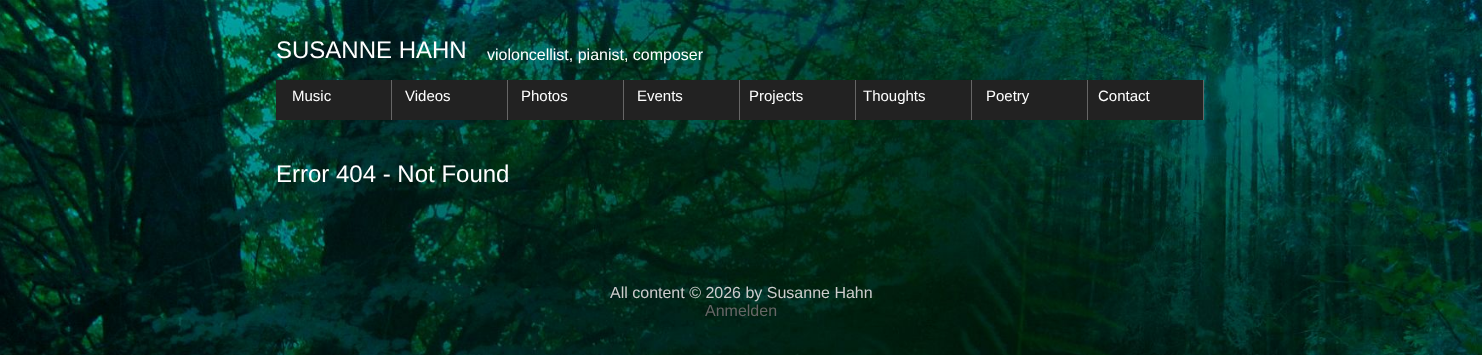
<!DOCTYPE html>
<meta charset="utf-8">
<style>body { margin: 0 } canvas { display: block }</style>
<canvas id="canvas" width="1482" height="355"></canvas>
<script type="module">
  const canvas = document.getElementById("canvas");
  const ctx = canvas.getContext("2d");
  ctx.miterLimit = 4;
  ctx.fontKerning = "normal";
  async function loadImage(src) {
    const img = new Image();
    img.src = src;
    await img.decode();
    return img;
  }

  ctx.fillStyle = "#ffffff";
  ctx.fillRect(0, 0, 1482, 355);
  ctx.drawImage(await loadImage("img1.png"), 0, 0, 1482, 355);
  ctx.font = "24px Liberation Sans";
  ctx.fillText("SUSANNE HAHN", 276, 58);
  ctx.font = "16px Liberation Sans";
  ctx.fillText("violoncellist, pianist, composer", 487, 60);
  ctx.fillStyle = "#222222";
  ctx.fillRect(276, 80, 115, 40);
  ctx.fillStyle = "#666666";
  ctx.fillRect(391, 80, 1, 40);
  ctx.font = "15px Liberation Sans";
  ctx.fillStyle = "#ffffff";
  ctx.fillText("Music", 292, 101);
  ctx.fillStyle = "#222222";
  ctx.fillRect(392, 80, 115, 40);
  ctx.fillStyle = "#666666";
  ctx.fillRect(507, 80, 1, 40);
  ctx.fillStyle = "#ffffff";
  ctx.fillText("Videos", 405, 101);
  ctx.fillStyle = "#222222";
  ctx.fillRect(508, 80, 115, 40);
  ctx.fillStyle = "#666666";
  ctx.fillRect(623, 80, 1, 40);
  ctx.fillStyle = "#ffffff";
  ctx.fillText("Photos", 521, 101);
  ctx.fillStyle = "#222222";
  ctx.fillRect(624, 80, 115, 40);
  ctx.fillStyle = "#666666";
  ctx.fillRect(739, 80, 1, 40);
  ctx.fillStyle = "#ffffff";
  ctx.fillText("Events", 637, 101);
  ctx.fillStyle = "#222222";
  ctx.fillRect(740, 80, 115, 40);
  ctx.fillStyle = "#666666";
  ctx.fillRect(855, 80, 1, 40);
  ctx.fillStyle = "#ffffff";
  ctx.fillText("Projects", 749, 101);
  ctx.fillStyle = "#222222";
  ctx.fillRect(856, 80, 115, 40);
  ctx.fillStyle = "#666666";
  ctx.fillRect(971, 80, 1, 40);
  ctx.fillStyle = "#ffffff";
  ctx.fillText("Thoughts", 863, 101);
  ctx.fillStyle = "#222222";
  ctx.fillRect(972, 80, 115, 40);
  ctx.fillStyle = "#666666";
  ctx.fillRect(1087, 80, 1, 40);
  ctx.fillStyle = "#ffffff";
  ctx.fillText("Poetry", 986, 101);
  ctx.fillStyle = "#222222";
  ctx.fillRect(1088, 80, 115, 40);
  ctx.fillStyle = "#666666";
  ctx.fillRect(1203, 80, 1, 40);
  ctx.fillStyle = "#ffffff";
  ctx.fillText("Contact", 1098, 101);
  ctx.font = "24px Liberation Sans";
  ctx.fillText("Error 404 - Not Found", 276, 182);
  ctx.font = "16px Liberation Sans";
  ctx.fillStyle = "#cccccc";
  ctx.fillText("All content © 2026 by Susanne Hahn", 610, 298);
  ctx.fillStyle = "#666666";
  ctx.fillText("Anmelden", 705, 316);
</script>
